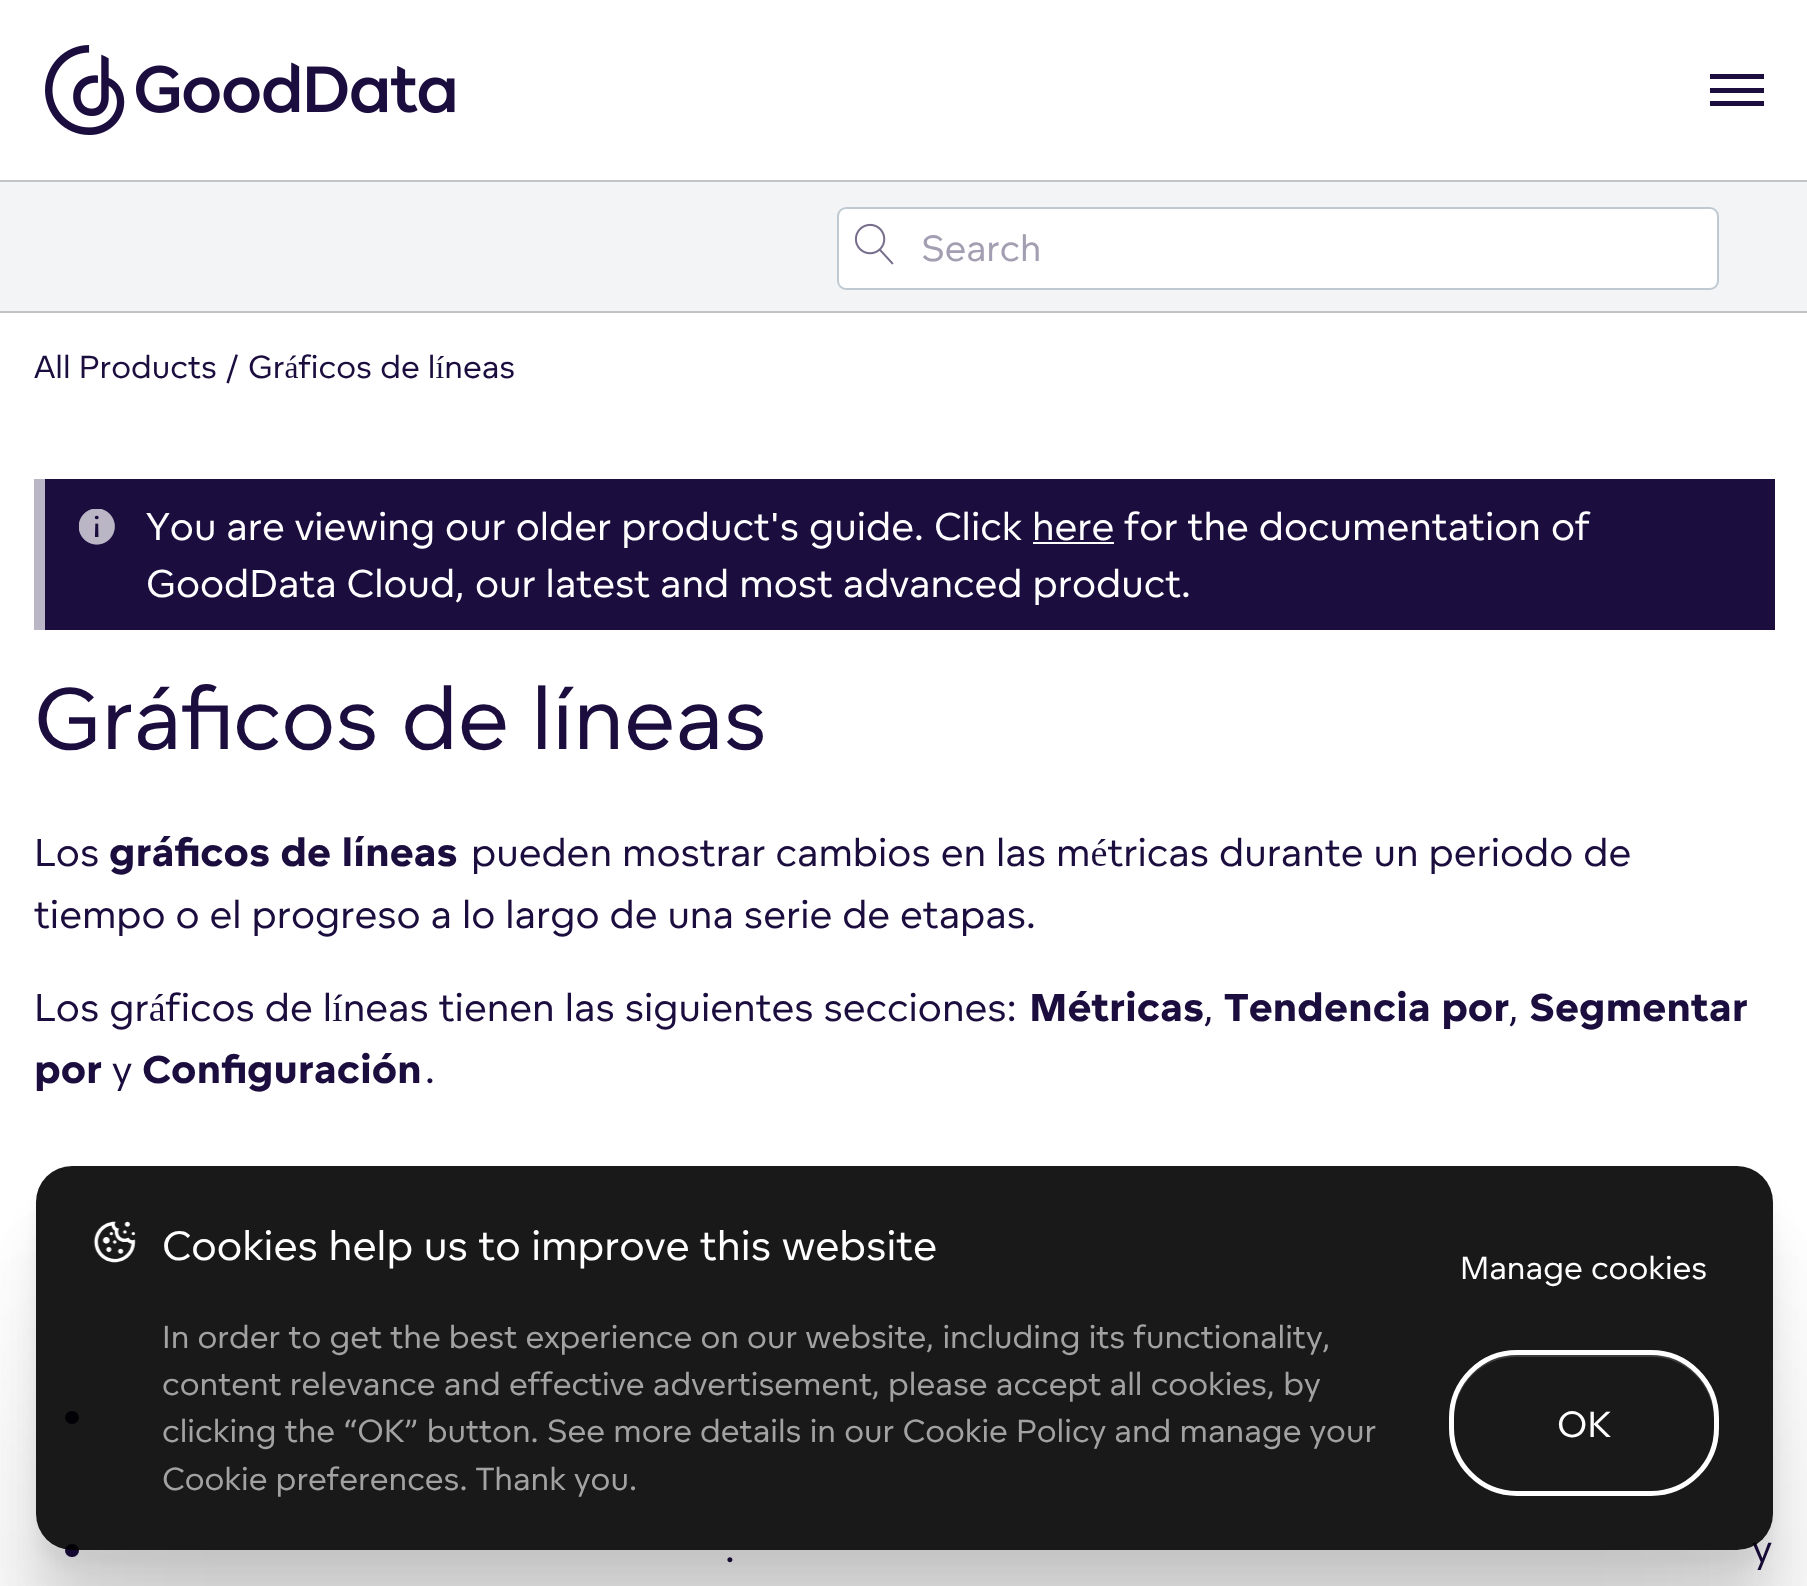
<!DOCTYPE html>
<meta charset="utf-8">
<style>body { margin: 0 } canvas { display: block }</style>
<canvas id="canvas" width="1807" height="1586"></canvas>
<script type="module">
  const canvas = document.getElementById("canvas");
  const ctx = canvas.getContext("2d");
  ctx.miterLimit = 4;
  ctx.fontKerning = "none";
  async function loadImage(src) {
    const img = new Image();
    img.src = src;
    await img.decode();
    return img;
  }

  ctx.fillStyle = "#ffffff";
  ctx.fillRect(0, 0, 1807, 1586);
  ctx.drawImage(await loadImage("img1.png"), 45, 45, 410, 90);
  ctx.fillStyle = "#1c0d3f";
  ctx.fillRect(1710, 74, 54, 5);
  ctx.fillRect(1710, 88, 54, 5);
  ctx.fillRect(1710, 101, 54, 5);
  ctx.fillStyle = "#f2f4f6";
  ctx.fillRect(0, 182, 1807, 129);
  ctx.fillStyle = "#c2c3c5";
  ctx.fillRect(0, 180, 1807, 2);
  ctx.fillRect(0, 311, 1807, 2);
  ctx.fillStyle = "#ffffff";
  ctx.beginPath();
  ctx.roundRect(837, 207, 882, 83, 9);
  ctx.fill();
  ctx.drawImage(await loadImage("img2.png"), 854, 223, 40, 42);
  ctx.beginPath();
  ctx.roundRect(838, 208, 880, 81, 8);
  ctx.strokeStyle = "#bfc9d1";
  ctx.lineWidth = 2;
  ctx.stroke();
  ctx.font = "36px 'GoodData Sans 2'";
  ctx.fillStyle = "#a49eb2";
  ctx.fillText("Search", 921, 261);
  ctx.font = "31.5px 'GoodData Sans 2'";
  ctx.fillStyle = "#1c0d3f";
  ctx.fillText("All Products", 34, 378);
  ctx.fillText("/", 226, 378);
  ctx.fillText("Gráficos de líneas", 248, 378);
  ctx.fillRect(45, 479, 1730, 151);
  ctx.fillStyle = "#bbb6c5";
  ctx.fillRect(34, 479, 11, 151);
  ctx.drawImage(await loadImage("img3.png"), 79, 509, 36, 36);
  ctx.font = "38.25px 'GoodData Sans 2'";
  ctx.fillStyle = "#ffffff";
  ctx.fillText("You are viewing our older product's guide.", 146, 540);
  ctx.fillText("Click here for the documentation of", 934, 540);
  ctx.fillRect(1033, 542, 81, 2);
  ctx.fillText("GoodData Cloud, our latest and most advanced product.", 146, 597);
  ctx.font = "86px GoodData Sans";
  ctx.fillStyle = "#1c0d3f";
  ctx.fillText("Gráficos de líneas", 34, 749);
  ctx.font = "38.25px 'GoodData Sans 2'";
  ctx.fillText("Los", 34, 866);
  ctx.font = "800 38.25px GoodData Sans";
  ctx.fillText("gráficos de líneas", 109, 866);
  ctx.font = "38.25px 'GoodData Sans 2'";
  ctx.fillText("pueden mostrar cambios en las métricas durante un periodo de", 471, 866);
  ctx.fillText("tiempo o el progreso a lo largo de una serie de etapas.", 34, 928);
  ctx.fillText("Los gráficos de líneas tienen las siguientes secciones:", 34, 1021);
  ctx.font = "800 38.25px GoodData Sans";
  ctx.fillText("Métricas", 1029, 1021);
  ctx.font = "38.25px 'GoodData Sans 2'";
  ctx.fillText(",", 1204, 1021);
  ctx.font = "800 38.25px GoodData Sans";
  ctx.fillText("Tendencia por", 1224, 1021);
  ctx.font = "38.25px 'GoodData Sans 2'";
  ctx.fillText(",", 1509, 1021);
  ctx.font = "800 38.25px GoodData Sans";
  ctx.fillText("Segmentar", 1529, 1021);
  ctx.fillText("por", 34, 1083);
  ctx.font = "38.25px 'GoodData Sans 2'";
  ctx.fillText("y", 112, 1083);
  ctx.font = "800 38.25px GoodData Sans";
  ctx.fillText("Configuración", 142, 1083);
  ctx.font = "38.25px 'GoodData Sans 2'";
  ctx.fillText(".", 425, 1083);
  ctx.beginPath();
  ctx.roundRect(65, 1411, 14, 13, 6.5);
  ctx.fill();
  ctx.beginPath();
  ctx.roundRect(65, 1544, 14, 13, 6.5);
  ctx.fill();
  ctx.fillText("y", 1752, 1562);
  ctx.fillText(".", 725, 1562);
  ctx.save();
  ctx.beginPath();
  ctx.moveTo(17, 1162);
  ctx.lineTo(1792, 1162);
  ctx.lineTo(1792, 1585);
  ctx.lineTo(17, 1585);
  ctx.closePath();
  ctx.moveTo(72, 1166);
  ctx.lineTo(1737, 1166);
  ctx.bezierCurveTo(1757, 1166, 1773, 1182, 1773, 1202);
  ctx.lineTo(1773, 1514);
  ctx.bezierCurveTo(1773, 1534, 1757, 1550, 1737, 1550);
  ctx.lineTo(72, 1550);
  ctx.bezierCurveTo(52, 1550, 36, 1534, 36, 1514);
  ctx.lineTo(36, 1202);
  ctx.bezierCurveTo(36, 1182, 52, 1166, 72, 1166);
  ctx.closePath();
  ctx.clip("evenodd");
  ctx.fillStyle = "rgba(0, 0, 0, 0.04)";
  ctx.filter = "blur(6px)";
  ctx.beginPath();
  ctx.roundRect(36, 1181, 1737, 385, 36);
  ctx.fill();
  ctx.filter = "none";
  ctx.restore();
  ctx.save();
  ctx.beginPath();
  ctx.moveTo(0, 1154);
  ctx.lineTo(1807, 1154);
  ctx.lineTo(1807, 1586);
  ctx.lineTo(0, 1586);
  ctx.closePath();
  ctx.moveTo(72, 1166);
  ctx.lineTo(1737, 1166);
  ctx.bezierCurveTo(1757, 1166, 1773, 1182, 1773, 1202);
  ctx.lineTo(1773, 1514);
  ctx.bezierCurveTo(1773, 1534, 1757, 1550, 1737, 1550);
  ctx.lineTo(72, 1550);
  ctx.bezierCurveTo(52, 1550, 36, 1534, 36, 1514);
  ctx.lineTo(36, 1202);
  ctx.bezierCurveTo(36, 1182, 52, 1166, 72, 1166);
  ctx.closePath();
  ctx.clip("evenodd");
  ctx.fillStyle = "rgba(0, 0, 0, 0.06)";
  ctx.filter = "blur(20px)";
  ctx.beginPath();
  ctx.roundRect(36, 1215, 1737, 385, 36);
  ctx.fill();
  ctx.filter = "none";
  ctx.restore();
  ctx.save();
  ctx.beginPath();
  ctx.moveTo(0, 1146);
  ctx.lineTo(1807, 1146);
  ctx.lineTo(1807, 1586);
  ctx.lineTo(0, 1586);
  ctx.closePath();
  ctx.moveTo(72, 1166);
  ctx.lineTo(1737, 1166);
  ctx.bezierCurveTo(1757, 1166, 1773, 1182, 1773, 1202);
  ctx.lineTo(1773, 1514);
  ctx.bezierCurveTo(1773, 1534, 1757, 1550, 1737, 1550);
  ctx.lineTo(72, 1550);
  ctx.bezierCurveTo(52, 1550, 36, 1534, 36, 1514);
  ctx.lineTo(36, 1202);
  ctx.bezierCurveTo(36, 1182, 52, 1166, 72, 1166);
  ctx.closePath();
  ctx.clip("evenodd");
  ctx.fillStyle = "rgba(0, 0, 0, 0.06)";
  ctx.filter = "blur(37.5px)";
  ctx.beginPath();
  ctx.roundRect(36, 1260, 1737, 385, 36);
  ctx.fill();
  ctx.filter = "none";
  ctx.restore();
  ctx.save();
  ctx.beginPath();
  ctx.moveTo(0, 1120);
  ctx.lineTo(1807, 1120);
  ctx.lineTo(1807, 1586);
  ctx.lineTo(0, 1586);
  ctx.closePath();
  ctx.moveTo(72, 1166);
  ctx.lineTo(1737, 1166);
  ctx.bezierCurveTo(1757, 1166, 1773, 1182, 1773, 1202);
  ctx.lineTo(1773, 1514);
  ctx.bezierCurveTo(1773, 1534, 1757, 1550, 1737, 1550);
  ctx.lineTo(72, 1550);
  ctx.bezierCurveTo(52, 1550, 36, 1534, 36, 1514);
  ctx.lineTo(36, 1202);
  ctx.bezierCurveTo(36, 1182, 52, 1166, 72, 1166);
  ctx.closePath();
  ctx.clip("evenodd");
  ctx.fillStyle = "rgba(0, 0, 0, 0.09)";
  ctx.filter = "blur(90px)";
  ctx.beginPath();
  ctx.roundRect(36, 1391, 1737, 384, 36);
  ctx.fill();
  ctx.filter = "none";
  ctx.restore();
  ctx.fillStyle = "rgba(0, 0, 0, 0.9)";
  ctx.beginPath();
  ctx.roundRect(36, 1166, 1737, 384, 36);
  ctx.fill();
  ctx.drawImage(await loadImage("img4.png"), 93, 1221, 43, 42);
  ctx.font = "40.5px 'GoodData Sans 2'";
  ctx.fillStyle = "#ffffff";
  ctx.fillText("Cookies help us to improve this website", 162, 1260);
  ctx.font = "31.5px 'GoodData Sans 2'";
  ctx.fillStyle = "#a3a2a3";
  ctx.fillText("In order to get the best experience on our website, including its functionality,", 162, 1348);
  ctx.fillText("content relevance and effective advertisement, please accept all cookies, by", 162, 1395);
  ctx.fillText("clicking the “OK” button. See more details in our Cookie Policy and manage your", 162, 1442);
  ctx.fillText("Cookie preferences. Thank you.", 162, 1490);
  ctx.fillStyle = "#ffffff";
  ctx.fillText("Manage cookies", 1460, 1279);
  ctx.fillStyle = "#3c3c3c";
  ctx.beginPath();
  ctx.moveTo(1516, 1357);
  ctx.lineTo(1652, 1357);
  ctx.bezierCurveTo(1686, 1357, 1714, 1385, 1714, 1420);
  ctx.lineTo(1714, 1431);
  ctx.bezierCurveTo(1714, 1440, 1712, 1448, 1709, 1456);
  ctx.bezierCurveTo(1713, 1448, 1715, 1439, 1715, 1429);
  ctx.lineTo(1715, 1418);
  ctx.bezierCurveTo(1715, 1383, 1687, 1355, 1652, 1355);
  ctx.lineTo(1517, 1355);
  ctx.bezierCurveTo(1482, 1355, 1454, 1383, 1454, 1418);
  ctx.lineTo(1454, 1420);
  ctx.bezierCurveTo(1454, 1385, 1482, 1357, 1516, 1357);
  ctx.closePath();
  ctx.fill();
  ctx.beginPath();
  ctx.roundRect(1451.5, 1352.5, 265, 141, 65.5);
  ctx.strokeStyle = "#ffffff";
  ctx.lineWidth = 5;
  ctx.stroke();
  ctx.font = "36px 'GoodData Sans 2'";
  ctx.fillStyle = "#ffffff";
  ctx.fillText("OK", 1557, 1437);
</script>
